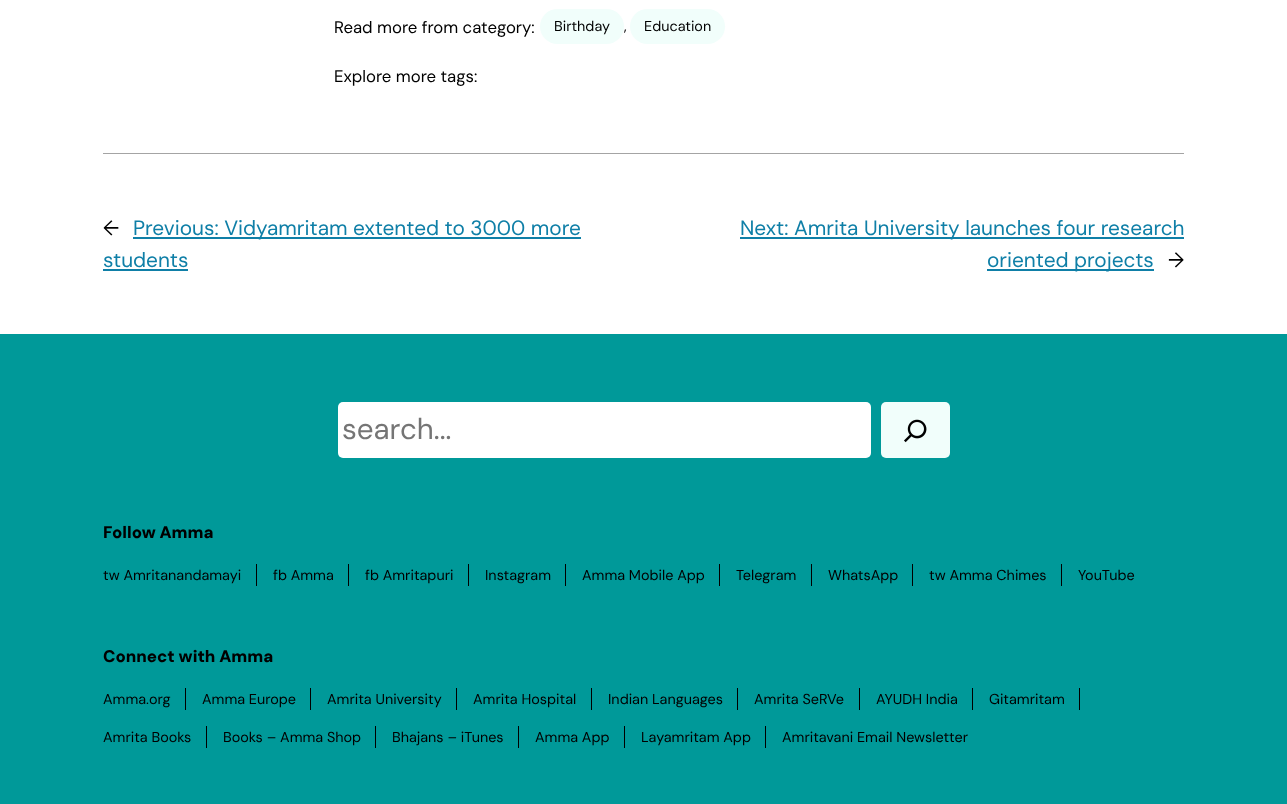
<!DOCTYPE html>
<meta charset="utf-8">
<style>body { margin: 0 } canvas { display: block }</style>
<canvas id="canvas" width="1287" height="804"></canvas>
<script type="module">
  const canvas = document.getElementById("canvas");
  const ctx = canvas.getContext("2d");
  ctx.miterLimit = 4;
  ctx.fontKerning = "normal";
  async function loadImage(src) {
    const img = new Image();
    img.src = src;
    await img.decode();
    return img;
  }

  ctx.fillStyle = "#ffffff";
  ctx.fillRect(0, 0, 1287, 804);
  ctx.font = "16.75px DM Sans";
  ctx.fillStyle = "#000000";
  ctx.fillText("Read more from category:", 334, 33);
  ctx.fillStyle = "#f1fefb";
  ctx.beginPath();
  ctx.roundRect(540, 9, 84, 35, 17.5);
  ctx.fill();
  ctx.font = "14.4px DM Sans";
  ctx.fillStyle = "#000000";
  ctx.fillText("Birthday", 554, 31);
  ctx.fillText(",", 624, 31);
  ctx.fillStyle = "#f1fefb";
  ctx.beginPath();
  ctx.roundRect(630, 9, 95, 35, 17.5);
  ctx.fill();
  ctx.fillStyle = "#000000";
  ctx.fillText("Education", 644, 31);
  ctx.font = "16.75px DM Sans";
  ctx.fillText("Explore more tags:", 334, 82);
  ctx.fillStyle = "#a4a4a4";
  ctx.fillRect(103, 153, 1081, 1);
  ctx.font = "20.8px DM Sans";
  ctx.fillStyle = "#000000";
  ctx.fillText("←", 103, 235);
  ctx.fillStyle = "#0f7fa7";
  ctx.fillRect(133, 237, 448, 2);
  ctx.fillText("Previous: Vidyamritam extented to 3000 more", 133, 235);
  ctx.fillText("students", 103, 267);
  ctx.fillRect(103, 269, 85, 2);
  ctx.fillRect(740, 237, 444, 2);
  ctx.fillText("Next: Amrita University launches four research", 740, 235);
  ctx.fillRect(987, 269, 167, 2);
  ctx.fillText("oriented projects", 987, 267);
  ctx.fillStyle = "#000000";
  ctx.fillText("→", 1168, 267);
  ctx.fillStyle = "#009999";
  ctx.fillRect(0, 334, 1287, 470);
  ctx.fillStyle = "#ffffff";
  ctx.beginPath();
  ctx.roundRect(338, 402, 533, 56, 5);
  ctx.fill();
  ctx.font = "29.5px DM Sans";
  ctx.fillStyle = "#757575";
  ctx.fillText("search...", 342, 439);
  ctx.fillStyle = "#f1fefb";
  ctx.beginPath();
  ctx.roundRect(881, 402, 69, 56, 5);
  ctx.fill();
  ctx.drawImage(await loadImage("img1.png"), 904, 419, 23, 24);
  ctx.font = "900 16.75px DM Sans";
  ctx.fillStyle = "#000000";
  ctx.fillText("Follow Amma", 103, 538);
  ctx.fillRect(256, 564, 1, 22);
  ctx.font = "14.4px DM Sans";
  ctx.fillText("tw Amritanandamayi", 103, 580);
  ctx.fillRect(348, 564, 1, 22);
  ctx.fillText("fb Amma", 273, 580);
  ctx.fillRect(468, 564, 1, 22);
  ctx.fillText("fb Amritapuri", 365, 580);
  ctx.fillRect(565, 564, 1, 22);
  ctx.fillText("Instagram", 485, 580);
  ctx.fillRect(719, 564, 1, 22);
  ctx.fillText("Amma Mobile App", 582, 580);
  ctx.fillRect(811, 564, 1, 22);
  ctx.fillText("Telegram", 736, 580);
  ctx.fillRect(912, 564, 1, 22);
  ctx.fillText("WhatsApp", 828, 580);
  ctx.fillRect(1061, 564, 1, 22);
  ctx.fillText("tw Amma Chimes", 929, 580);
  ctx.fillText("YouTube", 1078, 580);
  ctx.font = "900 16.75px DM Sans";
  ctx.fillText("Connect with Amma", 103, 662);
  ctx.fillRect(185, 688, 1, 22);
  ctx.font = "14.4px DM Sans";
  ctx.fillText("Amma.org", 103, 704);
  ctx.fillRect(310, 688, 1, 22);
  ctx.fillText("Amma Europe", 202, 704);
  ctx.fillRect(456, 688, 1, 22);
  ctx.fillText("Amrita University", 327, 704);
  ctx.fillRect(591, 688, 1, 22);
  ctx.fillText("Amrita Hospital", 473, 704);
  ctx.fillRect(737, 688, 1, 22);
  ctx.fillText("Indian Languages", 608, 704);
  ctx.fillRect(859, 688, 1, 22);
  ctx.fillText("Amrita SeRVe", 754, 704);
  ctx.fillRect(972, 688, 1, 22);
  ctx.fillText("AYUDH India", 876, 704);
  ctx.fillRect(1079, 688, 1, 22);
  ctx.fillText("Gitamritam", 989, 704);
  ctx.fillRect(206, 726, 1, 22);
  ctx.fillText("Amrita Books", 103, 742);
  ctx.fillRect(375, 726, 1, 22);
  ctx.fillText("Books – Amma Shop", 223, 742);
  ctx.fillRect(518, 726, 1, 22);
  ctx.fillText("Bhajans – iTunes", 392, 742);
  ctx.fillRect(624, 726, 1, 22);
  ctx.fillText("Amma App", 535, 742);
  ctx.fillRect(765, 726, 1, 22);
  ctx.fillText("Layamritam App", 641, 742);
  ctx.fillText("Amritavani Email Newsletter", 782, 742);
</script>
